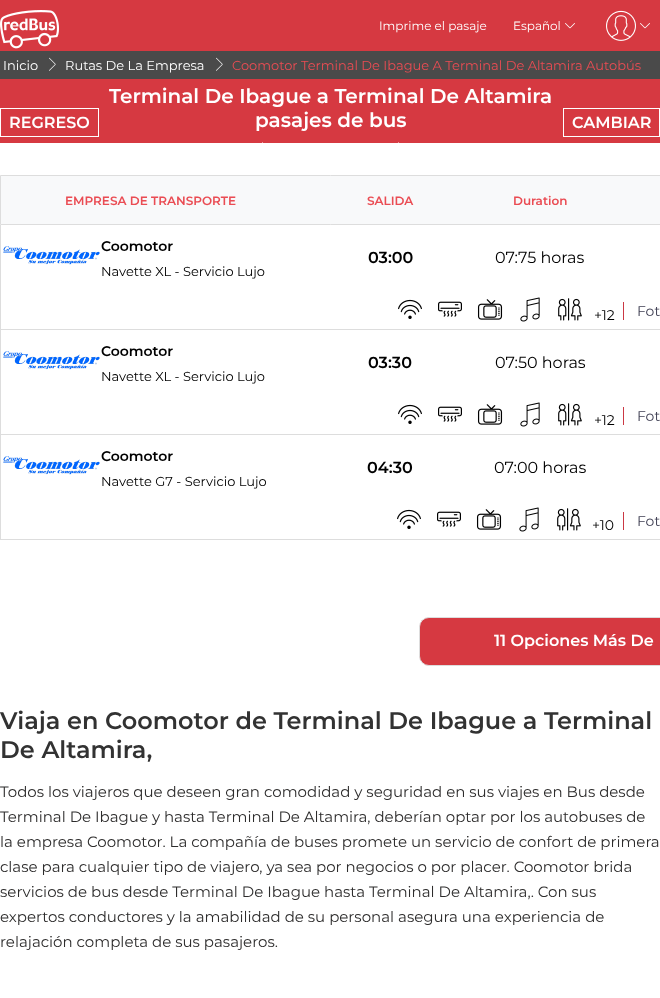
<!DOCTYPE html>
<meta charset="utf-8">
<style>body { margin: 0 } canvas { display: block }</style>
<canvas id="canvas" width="660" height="998"></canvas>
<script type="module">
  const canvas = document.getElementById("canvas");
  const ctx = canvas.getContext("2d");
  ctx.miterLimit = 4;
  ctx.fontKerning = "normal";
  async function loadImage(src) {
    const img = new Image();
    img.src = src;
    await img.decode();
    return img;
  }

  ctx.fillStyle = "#ffffff";
  ctx.fillRect(0, 0, 660, 998);
  ctx.fillStyle = "#d63941";
  ctx.fillRect(0, 0, 660, 51);
  ctx.drawImage(await loadImage("img1.png"), 0, 10, 59, 39);
  ctx.font = "100 12px Montserrat";
  ctx.fillStyle = "#ffffff";
  ctx.fillText("Imprime el pasaje", 379, 30);
  ctx.fillText("Español", 513, 30);
  ctx.drawImage(await loadImage("img2.png"), 565, 23, 10, 6);
  ctx.drawImage(await loadImage("img3.png"), 606, 10, 30, 31);
  ctx.drawImage(await loadImage("img2.png"), 640, 23, 10, 6);
  ctx.fillStyle = "#4a4a4a";
  ctx.fillRect(0, 51, 660, 28);
  ctx.font = "100 13px Montserrat";
  ctx.fillStyle = "#ffffff";
  ctx.fillText("Inicio", 3, 70);
  ctx.drawImage(await loadImage("img4.png"), 49, 57, 7, 14);
  ctx.fillText("Rutas De La Empresa", 65, 70);
  ctx.drawImage(await loadImage("img4.png"), 216, 57, 7, 14);
  ctx.fillStyle = "#ea4c53";
  ctx.fillText("Coomotor Terminal De Ibague A Terminal De Altamira Autobús", 232, 70);
  ctx.fillStyle = "#d63941";
  ctx.fillRect(0, 79, 660, 64);
  ctx.strokeStyle = "#ffffff";
  ctx.strokeRect(0.5, 108.5, 98, 28);
  ctx.font = "600 16px Montserrat";
  ctx.fillStyle = "#ffffff";
  ctx.fillText("REGRESO", 9, 128);
  ctx.font = "600 20px Montserrat";
  ctx.fillText("Terminal De Ibague a Terminal De Altamira", 109, 103);
  ctx.fillText("pasajes de bus", 255, 127);
  ctx.beginPath();
  ctx.moveTo(263, 158);
  ctx.lineTo(255, 150);
  ctx.lineTo(263, 142);
  ctx.closePath();
  ctx.fill();
  ctx.beginPath();
  ctx.moveTo(398, 142);
  ctx.lineTo(406, 150);
  ctx.lineTo(398, 158);
  ctx.closePath();
  ctx.fill();
  ctx.strokeRect(563.5, 108.5, 96, 28);
  ctx.font = "600 16px Montserrat";
  ctx.fillText("CAMBIAR", 572, 128);
  ctx.fillStyle = "#f8f9fa";
  ctx.beginPath();
  ctx.rect(0.5, 175.5, 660, 49);
  ctx.fill();
  ctx.strokeStyle = "#dddddd";
  ctx.stroke();
  ctx.font = "600 12px Montserrat";
  ctx.fillStyle = "#ea4c53";
  ctx.fillText("EMPRESA DE TRANSPORTE", 65, 205);
  ctx.fillText("SALIDA", 367, 205);
  ctx.fillText("Duration", 513, 205);
  ctx.fillStyle = "#dddddd";
  ctx.fillRect(0, 225, 1, 315);
  ctx.drawImage(await loadImage("img5.png"), 3, 246, 97, 19);
  ctx.font = "600 14px Montserrat";
  ctx.fillStyle = "#000000";
  ctx.fillText("Coomotor", 101, 251);
  ctx.font = "100 13px Montserrat";
  ctx.fillText("Navette XL - Servicio Lujo", 101, 276);
  ctx.font = "600 16px Montserrat";
  ctx.fillText("03:00", 368, 263);
  ctx.font = "100 16px Montserrat";
  ctx.fillText("07:75 horas", 495, 263);
  ctx.fillStyle = "#dddddd";
  ctx.fillRect(1, 329, 659, 1);
  ctx.drawImage(await loadImage("img6.png"), 398, 299, 24, 20);
  ctx.drawImage(await loadImage("img7.png"), 438, 301, 24, 16);
  ctx.drawImage(await loadImage("img8.png"), 477, 299, 26, 21);
  ctx.drawImage(await loadImage("img9.png"), 520, 297, 20, 25);
  ctx.drawImage(await loadImage("img10.png"), 558, 298, 24, 23);
  ctx.font = "100 14px Montserrat";
  ctx.fillStyle = "#000000";
  ctx.fillText("+12", 594, 320);
  ctx.fillStyle = "#cb3844";
  ctx.fillRect(623, 302, 1, 18);
  ctx.fillStyle = "#3e3e52";
  ctx.fillText("Fot", 637, 316);
  ctx.drawImage(await loadImage("img5.png"), 3, 351, 97, 19);
  ctx.font = "600 14px Montserrat";
  ctx.fillStyle = "#000000";
  ctx.fillText("Coomotor", 101, 356);
  ctx.font = "100 13px Montserrat";
  ctx.fillText("Navette XL - Servicio Lujo", 101, 381);
  ctx.font = "600 16px Montserrat";
  ctx.fillText("03:30", 368, 368);
  ctx.font = "100 16px Montserrat";
  ctx.fillText("07:50 horas", 495, 368);
  ctx.fillStyle = "#dddddd";
  ctx.fillRect(1, 434, 659, 1);
  ctx.drawImage(await loadImage("img6.png"), 398, 404, 24, 20);
  ctx.drawImage(await loadImage("img7.png"), 438, 406, 24, 16);
  ctx.drawImage(await loadImage("img8.png"), 477, 404, 26, 21);
  ctx.drawImage(await loadImage("img9.png"), 520, 402, 20, 25);
  ctx.drawImage(await loadImage("img10.png"), 558, 403, 24, 23);
  ctx.font = "100 14px Montserrat";
  ctx.fillStyle = "#000000";
  ctx.fillText("+12", 594, 425);
  ctx.fillStyle = "#cb3844";
  ctx.fillRect(623, 407, 1, 18);
  ctx.fillStyle = "#3e3e52";
  ctx.fillText("Fot", 637, 421);
  ctx.drawImage(await loadImage("img5.png"), 3, 456, 97, 19);
  ctx.font = "600 14px Montserrat";
  ctx.fillStyle = "#000000";
  ctx.fillText("Coomotor", 101, 461);
  ctx.font = "100 13px Montserrat";
  ctx.fillText("Navette G7 - Servicio Lujo", 101, 486);
  ctx.font = "600 16px Montserrat";
  ctx.fillText("04:30", 367, 473);
  ctx.font = "100 16px Montserrat";
  ctx.fillText("07:00 horas", 494, 473);
  ctx.fillStyle = "#dddddd";
  ctx.fillRect(1, 539, 659, 1);
  ctx.drawImage(await loadImage("img6.png"), 397, 509, 24, 20);
  ctx.drawImage(await loadImage("img7.png"), 437, 511, 24, 16);
  ctx.drawImage(await loadImage("img8.png"), 476, 509, 26, 21);
  ctx.drawImage(await loadImage("img9.png"), 519, 507, 20, 25);
  ctx.drawImage(await loadImage("img10.png"), 557, 508, 24, 23);
  ctx.font = "100 14px Montserrat";
  ctx.fillStyle = "#000000";
  ctx.fillText("+10", 592, 530);
  ctx.fillStyle = "#cb3844";
  ctx.fillRect(623, 512, 1, 18);
  ctx.fillStyle = "#3e3e52";
  ctx.fillText("Fot", 637, 526);
  ctx.fillStyle = "#d63941";
  ctx.beginPath();
  ctx.roundRect(419.5, 617.5, 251, 48, 9.5);
  ctx.fill();
  ctx.stroke();
  ctx.font = "600 16px Montserrat";
  ctx.fillStyle = "#ffffff";
  ctx.fillText("11 Opciones Más De", 494, 646);
  ctx.font = "600 24px Montserrat";
  ctx.fillStyle = "#323232";
  ctx.fillText("Viaja en Coomotor de Terminal De Ibague a Terminal", 0, 729);
  ctx.fillText("De Altamira,", 0, 758);
  ctx.font = "100 15px Montserrat";
  ctx.fillStyle = "#2d2c2c";
  ctx.fillText("Todos los viajeros que deseen gran comodidad y seguridad en sus viajes en Bus desde", 0, 797);
  ctx.fillText("Terminal De Ibague y hasta Terminal De Altamira, deberían optar por los autobuses de", 0, 822);
  ctx.fillText("la empresa Coomotor. La compañía de buses promete un servicio de confort de primera", 0, 847);
  ctx.fillText("clase para cualquier tipo de viajero, ya sea por negocios o por placer. Coomotor brida", 0, 872);
  ctx.fillText("servicios de bus desde Terminal De Ibague hasta Terminal De Altamira,. Con sus", 0, 897);
  ctx.fillText("expertos conductores y la amabilidad de su personal asegura una experiencia de", 0, 922);
  ctx.fillText("relajación completa de sus pasajeros.", 0, 947);
</script>
